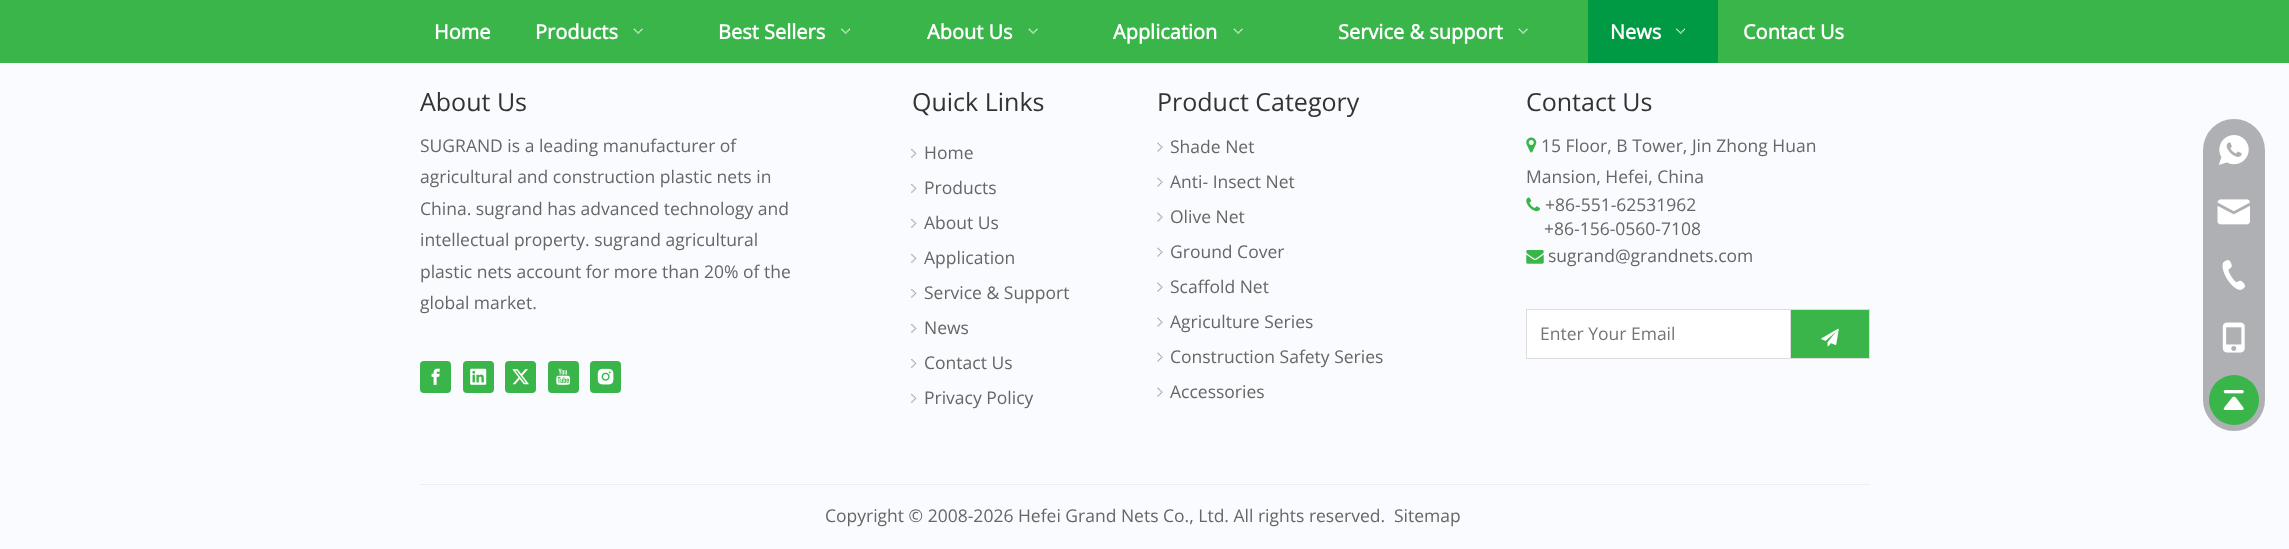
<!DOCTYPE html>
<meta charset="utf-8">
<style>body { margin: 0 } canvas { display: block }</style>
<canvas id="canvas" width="2289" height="549"></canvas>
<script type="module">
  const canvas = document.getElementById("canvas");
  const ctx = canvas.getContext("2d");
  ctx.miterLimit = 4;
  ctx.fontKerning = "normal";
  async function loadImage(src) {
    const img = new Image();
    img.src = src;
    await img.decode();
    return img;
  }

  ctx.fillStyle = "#f9fbff";
  ctx.fillRect(0, 0, 2289, 549);
  ctx.fillStyle = "#39b54a";
  ctx.fillRect(0, 0, 2289, 63);
  ctx.font = "bold 20px Open Sans";
  ctx.fillStyle = "#ffffff";
  ctx.fillText("Home", 434, 39);
  ctx.fillText("Products", 535, 39);
  ctx.drawImage(await loadImage("img1.png"), 633, 28, 10, 6);
  ctx.fillText("Best Sellers", 718, 39);
  ctx.drawImage(await loadImage("img2.png"), 841, 28, 9, 6);
  ctx.fillText("About Us", 927, 39);
  ctx.drawImage(await loadImage("img3.png"), 1028, 28, 10, 6);
  ctx.fillText("Application", 1113, 39);
  ctx.drawImage(await loadImage("img1.png"), 1233, 28, 10, 6);
  ctx.fillText("Service & support", 1338, 39);
  ctx.drawImage(await loadImage("img1.png"), 1518, 28, 10, 6);
  ctx.fillStyle = "#009944";
  ctx.fillRect(1588, 0, 130, 63);
  ctx.fillStyle = "#ffffff";
  ctx.fillText("News", 1610, 39);
  ctx.drawImage(await loadImage("img4.png"), 1676, 28, 9, 6);
  ctx.fillText("Contact Us", 1743, 39);
  ctx.font = "25px Open Sans";
  ctx.fillStyle = "#333333";
  ctx.fillText("About Us", 420, 111);
  ctx.font = "17.5px Open Sans";
  ctx.fillStyle = "#666666";
  ctx.fillText("SUGRAND is a leading manufacturer of", 420, 152);
  ctx.fillText("agricultural and construction plastic nets in", 420, 183);
  ctx.fillText("China. sugrand has advanced technology and", 420, 215);
  ctx.fillText("intellectual property. sugrand agricultural", 420, 246);
  ctx.fillText("plastic nets account for more than 20% of the", 420, 278);
  ctx.fillText("global market.", 420, 309);
  ctx.fillStyle = "#39b54a";
  ctx.beginPath();
  ctx.roundRect(420, 361, 31, 32, 4);
  ctx.fill();
  ctx.drawImage(await loadImage("img5.png"), 431, 368, 9, 17);
  ctx.beginPath();
  ctx.roundRect(463, 361, 31, 32, 4);
  ctx.fill();
  ctx.drawImage(await loadImage("img6.png"), 470, 368, 17, 17);
  ctx.beginPath();
  ctx.roundRect(505, 361, 31, 32, 4);
  ctx.fill();
  ctx.drawImage(await loadImage("img7.png"), 512, 369, 17, 16);
  ctx.beginPath();
  ctx.roundRect(548, 361, 31, 32, 4);
  ctx.fill();
  ctx.drawImage(await loadImage("img8.png"), 556, 368, 15, 17);
  ctx.beginPath();
  ctx.roundRect(590, 361, 31, 32, 4);
  ctx.fill();
  ctx.drawImage(await loadImage("img9.png"), 597, 368, 17, 17);
  ctx.font = "25px Open Sans";
  ctx.fillStyle = "#333333";
  ctx.fillText("Quick Links", 912, 111);
  ctx.drawImage(await loadImage("img10.png"), 911, 149, 6, 9);
  ctx.font = "17.5px Open Sans";
  ctx.fillStyle = "#666666";
  ctx.fillText("Home", 924, 159);
  ctx.drawImage(await loadImage("img10.png"), 911, 184, 6, 9);
  ctx.fillText("Products", 924, 194);
  ctx.drawImage(await loadImage("img10.png"), 911, 219, 6, 9);
  ctx.fillText("About Us", 924, 229);
  ctx.drawImage(await loadImage("img10.png"), 911, 254, 6, 9);
  ctx.fillText("Application", 924, 264);
  ctx.drawImage(await loadImage("img10.png"), 911, 289, 6, 9);
  ctx.fillText("Service & Support", 924, 299);
  ctx.drawImage(await loadImage("img10.png"), 911, 324, 6, 9);
  ctx.fillText("News", 924, 334);
  ctx.drawImage(await loadImage("img10.png"), 911, 359, 6, 9);
  ctx.fillText("Contact Us", 924, 369);
  ctx.drawImage(await loadImage("img10.png"), 911, 394, 6, 9);
  ctx.fillText("Privacy Policy", 924, 404);
  ctx.font = "25px Open Sans";
  ctx.fillStyle = "#333333";
  ctx.fillText("Product Category", 1157, 111);
  ctx.drawImage(await loadImage("img11.png"), 1157, 142, 6, 10);
  ctx.font = "17.5px Open Sans";
  ctx.fillStyle = "#666666";
  ctx.fillText("Shade Net", 1170, 153);
  ctx.drawImage(await loadImage("img11.png"), 1157, 177, 6, 10);
  ctx.fillText("Anti- Insect Net", 1170, 188);
  ctx.drawImage(await loadImage("img11.png"), 1157, 212, 6, 10);
  ctx.fillText("Olive Net", 1170, 223);
  ctx.drawImage(await loadImage("img11.png"), 1157, 247, 6, 10);
  ctx.fillText("Ground Cover", 1170, 258);
  ctx.drawImage(await loadImage("img11.png"), 1157, 282, 6, 10);
  ctx.fillText("Scaffold Net", 1170, 293);
  ctx.drawImage(await loadImage("img11.png"), 1157, 317, 6, 10);
  ctx.fillText("Agriculture Series", 1170, 328);
  ctx.drawImage(await loadImage("img11.png"), 1157, 352, 6, 10);
  ctx.fillText("Construction Safety Series", 1170, 363);
  ctx.drawImage(await loadImage("img11.png"), 1157, 387, 6, 10);
  ctx.fillText("Accessories", 1170, 398);
  ctx.font = "25px Open Sans";
  ctx.fillStyle = "#333333";
  ctx.fillText("Contact Us", 1526, 111);
  ctx.drawImage(await loadImage("img12.png"), 1526, 137, 11, 16);
  ctx.font = "17.5px Open Sans";
  ctx.fillStyle = "#666666";
  ctx.fillText("15 Floor, B Tower, Jin Zhong Huan", 1541, 152);
  ctx.fillText("Mansion, Hefei, China", 1526, 183);
  ctx.drawImage(await loadImage("img13.png"), 1526, 197, 14, 15);
  ctx.fillText("+86-551-62531962", 1545, 211);
  ctx.fillText("+86-156-0560-7108", 1544, 235);
  ctx.drawImage(await loadImage("img14.png"), 1526, 250, 18, 14);
  ctx.fillText("sugrand@grandnets.com", 1548, 262);
  ctx.fillStyle = "#aeb0b3";
  ctx.beginPath();
  ctx.roundRect(2203, 119, 62, 312, 31);
  ctx.fill();
  ctx.drawImage(await loadImage("img15.png"), 2218, 135, 31, 30);
  ctx.drawImage(await loadImage("img16.png"), 2217, 199, 33, 26);
  ctx.drawImage(await loadImage("img17.png"), 2222, 260, 23, 30);
  ctx.drawImage(await loadImage("img18.png"), 2222, 322, 23, 31);
  ctx.fillStyle = "#39b54a";
  ctx.beginPath();
  ctx.arc(2234, 400, 25, 0, Math.PI * 2);
  ctx.fill();
  ctx.drawImage(await loadImage("img19.png"), 2223, 390, 21, 20);
  ctx.fillStyle = "#ffffff";
  ctx.fillRect(1527, 310, 263, 48);
  ctx.strokeStyle = "#dddddd";
  ctx.strokeRect(1526.5, 309.5, 343, 49);
  ctx.fillStyle = "#757575";
  ctx.fillText("Enter Your Email", 1540, 340);
  ctx.fillStyle = "#39b54a";
  ctx.beginPath();
  ctx.rect(1790.5, 309.5, 79, 49);
  ctx.fill();
  ctx.stroke();
  ctx.drawImage(await loadImage("img20.png"), 1821, 328, 18, 19);
  ctx.fillStyle = "#eeeeee";
  ctx.fillRect(420, 484, 1450, 1);
  ctx.fillStyle = "#666666";
  ctx.fillText("Copyright © 2008-2026 Hefei Grand Nets Co., Ltd. All rights reserved.", 825, 522);
  ctx.fillText("Sitemap", 1394, 522);
</script>
